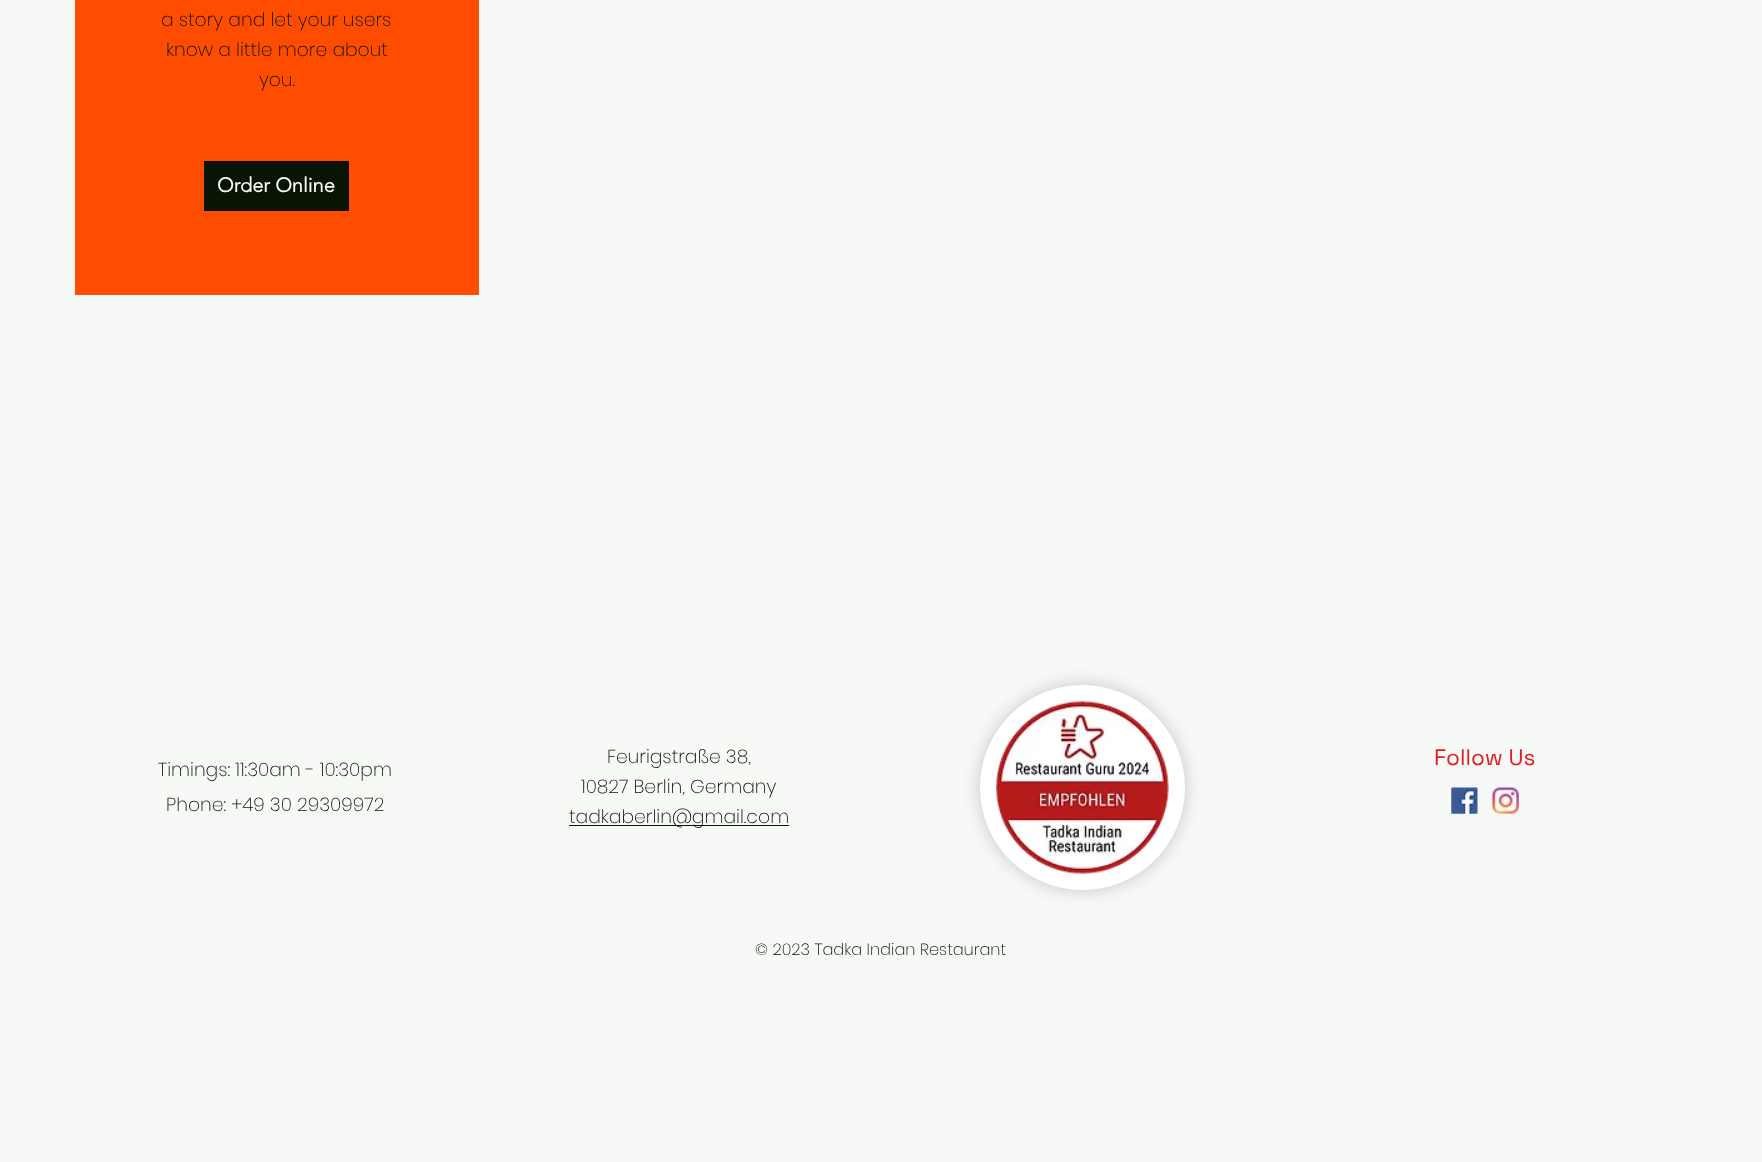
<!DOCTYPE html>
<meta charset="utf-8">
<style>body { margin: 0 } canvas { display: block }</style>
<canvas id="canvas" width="1762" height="1162"></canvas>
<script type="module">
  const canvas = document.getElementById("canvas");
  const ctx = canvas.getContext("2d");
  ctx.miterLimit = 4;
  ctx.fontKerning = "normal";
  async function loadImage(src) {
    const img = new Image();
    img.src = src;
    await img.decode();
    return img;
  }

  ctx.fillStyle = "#f6f9f5";
  ctx.fillRect(0, 0, 1762, 1162);
  ctx.fillStyle = "#fe4c00";
  ctx.fillRect(75, 0, 404, 295);
  ctx.font = "200 18.75px Poppins";
  ctx.fillStyle = "#091405";
  ctx.fillText("a story and let your users", 161, 26);
  ctx.fillText("know a little more about", 166, 56);
  ctx.fillText("you.", 259, 86);
  ctx.fillRect(204, 161, 145, 50);
  ctx.font = "bold 20px 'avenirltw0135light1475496'";
  ctx.fillStyle = "#f6f9f5";
  ctx.fillText("Order Online", 217, 192);
  ctx.font = "200 18.75px Poppins";
  ctx.fillStyle = "#091405";
  ctx.fillText("Feurigstraße 38,", 607, 763);
  ctx.fillText("10827 Berlin, Germany", 581, 793);
  ctx.fillRect(569, 825, 220, 1);
  ctx.fillText("tadkaberlin@gmail.com", 569, 823);
  ctx.fillStyle = "rgba(0, 0, 0, 0.2)";
  ctx.filter = "blur(9px)";
  ctx.beginPath();
  ctx.roundRect(980, 685, 205, 205, 102.5);
  ctx.fill();
  ctx.filter = "none";
  ctx.fillStyle = "#ffffff";
  ctx.beginPath();
  ctx.arc(1082.5, 787.5, 102.5, 0, Math.PI * 2);
  ctx.fill();
  ctx.drawImage(await loadImage("img1.png"), 996, 701, 173, 173);
  ctx.font = "22.5px Space Grotesk";
  ctx.fillStyle = "#e21c21";
  ctx.fillText("Follow Us", 1434, 765);
  ctx.drawImage(await loadImage("img2.png"), 1451, 787, 27, 27);
  ctx.drawImage(await loadImage("img3.png"), 1492, 787, 27, 27);
  ctx.font = "200 18.75px Poppins";
  ctx.fillStyle = "#091405";
  ctx.fillText("Timings: 11:30am - 10:30pm", 158, 776);
  ctx.fillText("Phone: +49 30 29309972", 166, 811);
  ctx.font = "200 16.25px Poppins";
  ctx.fillText("© 2023 Tadka Indian Restaurant", 755, 955);
</script>
